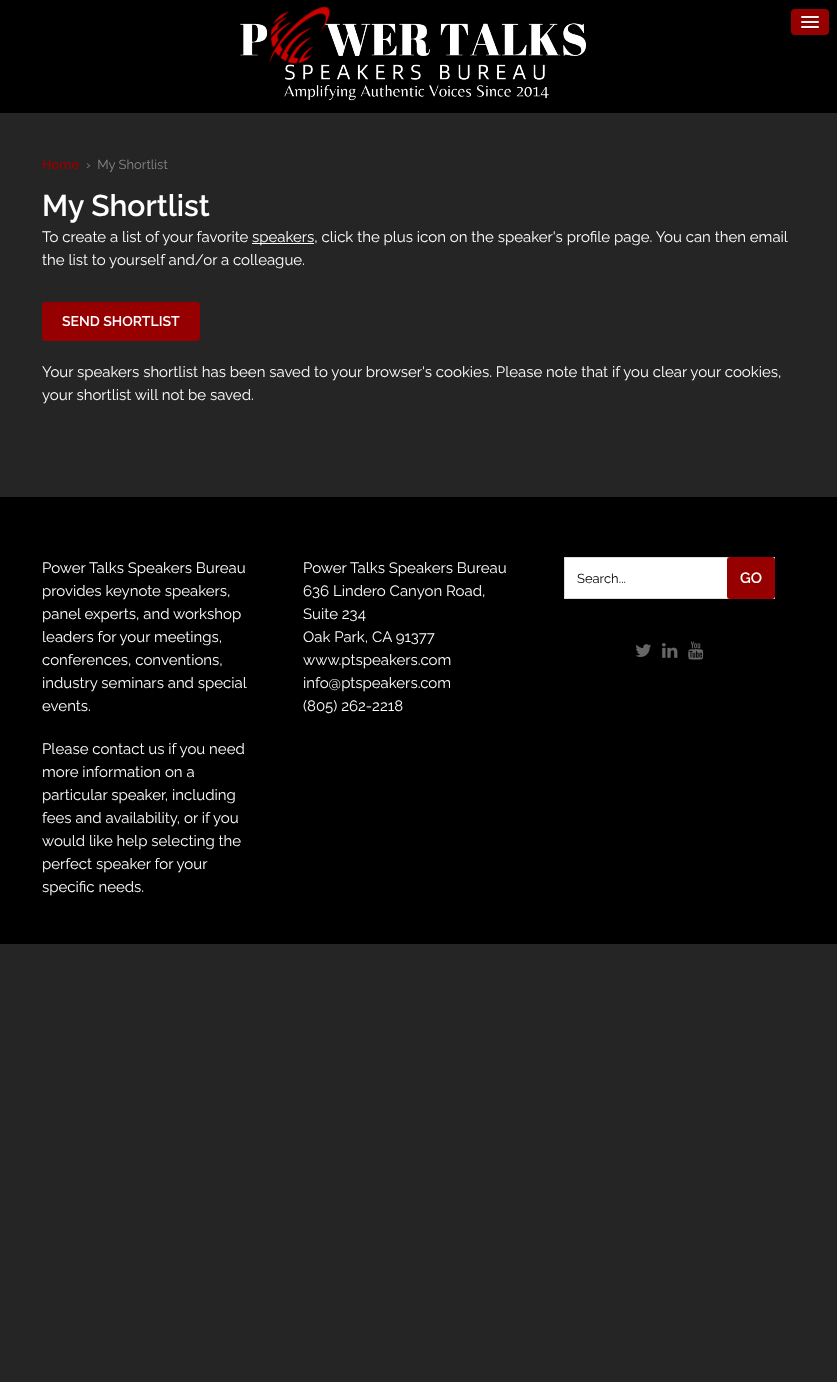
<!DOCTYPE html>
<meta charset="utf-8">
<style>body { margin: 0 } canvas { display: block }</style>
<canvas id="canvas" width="837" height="1382"></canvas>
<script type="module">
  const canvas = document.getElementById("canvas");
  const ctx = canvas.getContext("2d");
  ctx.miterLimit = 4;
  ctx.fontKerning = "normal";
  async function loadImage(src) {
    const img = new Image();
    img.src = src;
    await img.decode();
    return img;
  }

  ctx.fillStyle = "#252525";
  ctx.fillRect(0, 0, 837, 1382);
  ctx.fillStyle = "#000000";
  ctx.fillRect(0, 0, 837, 113);
  ctx.fillStyle = "#960000";
  ctx.beginPath();
  ctx.roundRect(791, 9, 38, 26, 4);
  ctx.fill();
  ctx.fillStyle = "#710000";
  ctx.beginPath();
  ctx.moveTo(801, 17.5);
  ctx.bezierCurveTo(800, 19.5, 804.5, 19, 804.5, 19);
  ctx.lineTo(815.5, 19);
  ctx.bezierCurveTo(815.5, 19, 820, 19.5, 819, 17.5);
  ctx.bezierCurveTo(818, 18.5, 811.5, 18, 810, 18);
  ctx.bezierCurveTo(808.5, 18, 802, 18.5, 801, 17.5);
  ctx.closePath();
  ctx.fill();
  ctx.fillStyle = "#f5f5f5";
  ctx.beginPath();
  ctx.roundRect(801, 16, 18, 2, 1);
  ctx.fill();
  ctx.fillStyle = "#710000";
  ctx.beginPath();
  ctx.moveTo(801, 22.5);
  ctx.bezierCurveTo(800, 24.5, 804.5, 24, 804.5, 24);
  ctx.lineTo(815.5, 24);
  ctx.bezierCurveTo(815.5, 24, 820, 24.5, 819, 22.5);
  ctx.bezierCurveTo(818, 23.5, 811.5, 23, 810, 23);
  ctx.bezierCurveTo(808.5, 23, 802, 23.5, 801, 22.5);
  ctx.closePath();
  ctx.fill();
  ctx.fillStyle = "#f5f5f5";
  ctx.beginPath();
  ctx.roundRect(801, 21, 18, 2, 1);
  ctx.fill();
  ctx.fillStyle = "#710000";
  ctx.beginPath();
  ctx.moveTo(801, 27.5);
  ctx.bezierCurveTo(800, 29.5, 804.5, 29, 804.5, 29);
  ctx.lineTo(815.5, 29);
  ctx.bezierCurveTo(815.5, 29, 820, 29.5, 819, 27.5);
  ctx.bezierCurveTo(818, 28.5, 811.5, 28, 810, 28);
  ctx.bezierCurveTo(808.5, 28, 802, 28.5, 801, 27.5);
  ctx.closePath();
  ctx.fill();
  ctx.fillStyle = "#f5f5f5";
  ctx.beginPath();
  ctx.roundRect(801, 26, 18, 2, 1);
  ctx.fill();
  ctx.drawImage(await loadImage("img1.png"), 240, 6, 346, 95);
  ctx.font = "600 13px Raleway";
  ctx.fillStyle = "#960000";
  ctx.fillText("Home", 42, 169);
  ctx.font = "13px Raleway";
  ctx.fillStyle = "#888888";
  ctx.fillText("›  My Shortlist", 86, 169);
  ctx.font = "600 30px Raleway";
  ctx.fillStyle = "#ffffff";
  ctx.fillText("My Shortlist", 42, 216);
  ctx.font = "15px Raleway";
  ctx.fillText("To create a list of your favorite", 42, 242);
  ctx.fillRect(252, 243, 62, 1);
  ctx.fillText("speakers, click the plus icon on the speaker's profile page. You can then email", 252, 242);
  ctx.fillText("the list to yourself and/or a colleague.", 42, 265);
  ctx.fillStyle = "#960000";
  ctx.beginPath();
  ctx.roundRect(42, 302, 158, 39, 3);
  ctx.fill();
  ctx.font = "600 14px Raleway";
  ctx.fillStyle = "#ffffff";
  ctx.fillText("SEND SHORTLIST", 62, 326);
  ctx.font = "15px Raleway";
  ctx.fillText("Your speakers shortlist has been saved to your browser's cookies. Please note that if you clear your cookies,", 42, 377);
  ctx.fillText("your shortlist will not be saved.", 42, 400);
  ctx.fillStyle = "#000000";
  ctx.fillRect(0, 497, 837, 447);
  ctx.fillStyle = "#ffffff";
  ctx.fillText("Power Talks Speakers Bureau", 42, 573);
  ctx.fillText("provides keynote speakers,", 42, 596);
  ctx.fillText("panel experts, and workshop", 42, 619);
  ctx.fillText("leaders for your meetings,", 42, 642);
  ctx.fillText("conferences, conventions,", 42, 665);
  ctx.fillText("industry seminars and special", 42, 688);
  ctx.fillText("events.", 42, 711);
  ctx.fillText("Please contact us if you need", 42, 754);
  ctx.fillText("more information on a", 42, 777);
  ctx.fillText("particular speaker, including", 42, 800);
  ctx.fillText("fees and availability, or if you", 42, 823);
  ctx.fillText("would like help selecting the", 42, 846);
  ctx.fillText("perfect speaker for your", 42, 869);
  ctx.fillText("specific needs.", 42, 892);
  ctx.fillText("Power Talks Speakers Bureau", 303, 573);
  ctx.fillText("636 Lindero Canyon Road,", 303, 596);
  ctx.fillText("Suite 234", 303, 619);
  ctx.fillText("Oak Park, CA 91377", 303, 642);
  ctx.fillText("www.ptspeakers.com", 303, 665);
  ctx.fillText("info@ptspeakers.com", 303, 688);
  ctx.fillText("(805) 262-2218", 303, 711);
  ctx.fillRect(565, 558, 163, 40);
  ctx.strokeStyle = "#dddddd";
  ctx.strokeRect(564.5, 557.5, 210, 41);
  ctx.font = "13px Raleway";
  ctx.fillStyle = "#000000";
  ctx.fillText("Search...", 577, 583);
  ctx.fillStyle = "#960000";
  ctx.beginPath();
  ctx.roundRect(727, 557, 48, 42, 3);
  ctx.fill();
  ctx.font = "600 15px Raleway";
  ctx.fillStyle = "#ffffff";
  ctx.fillText("GO", 740, 583);
  ctx.drawImage(await loadImage("img2.png"), 635, 644, 16, 13);
  ctx.drawImage(await loadImage("img3.png"), 662, 643, 16, 15);
  ctx.drawImage(await loadImage("img4.png"), 688, 641, 16, 19);
</script>
